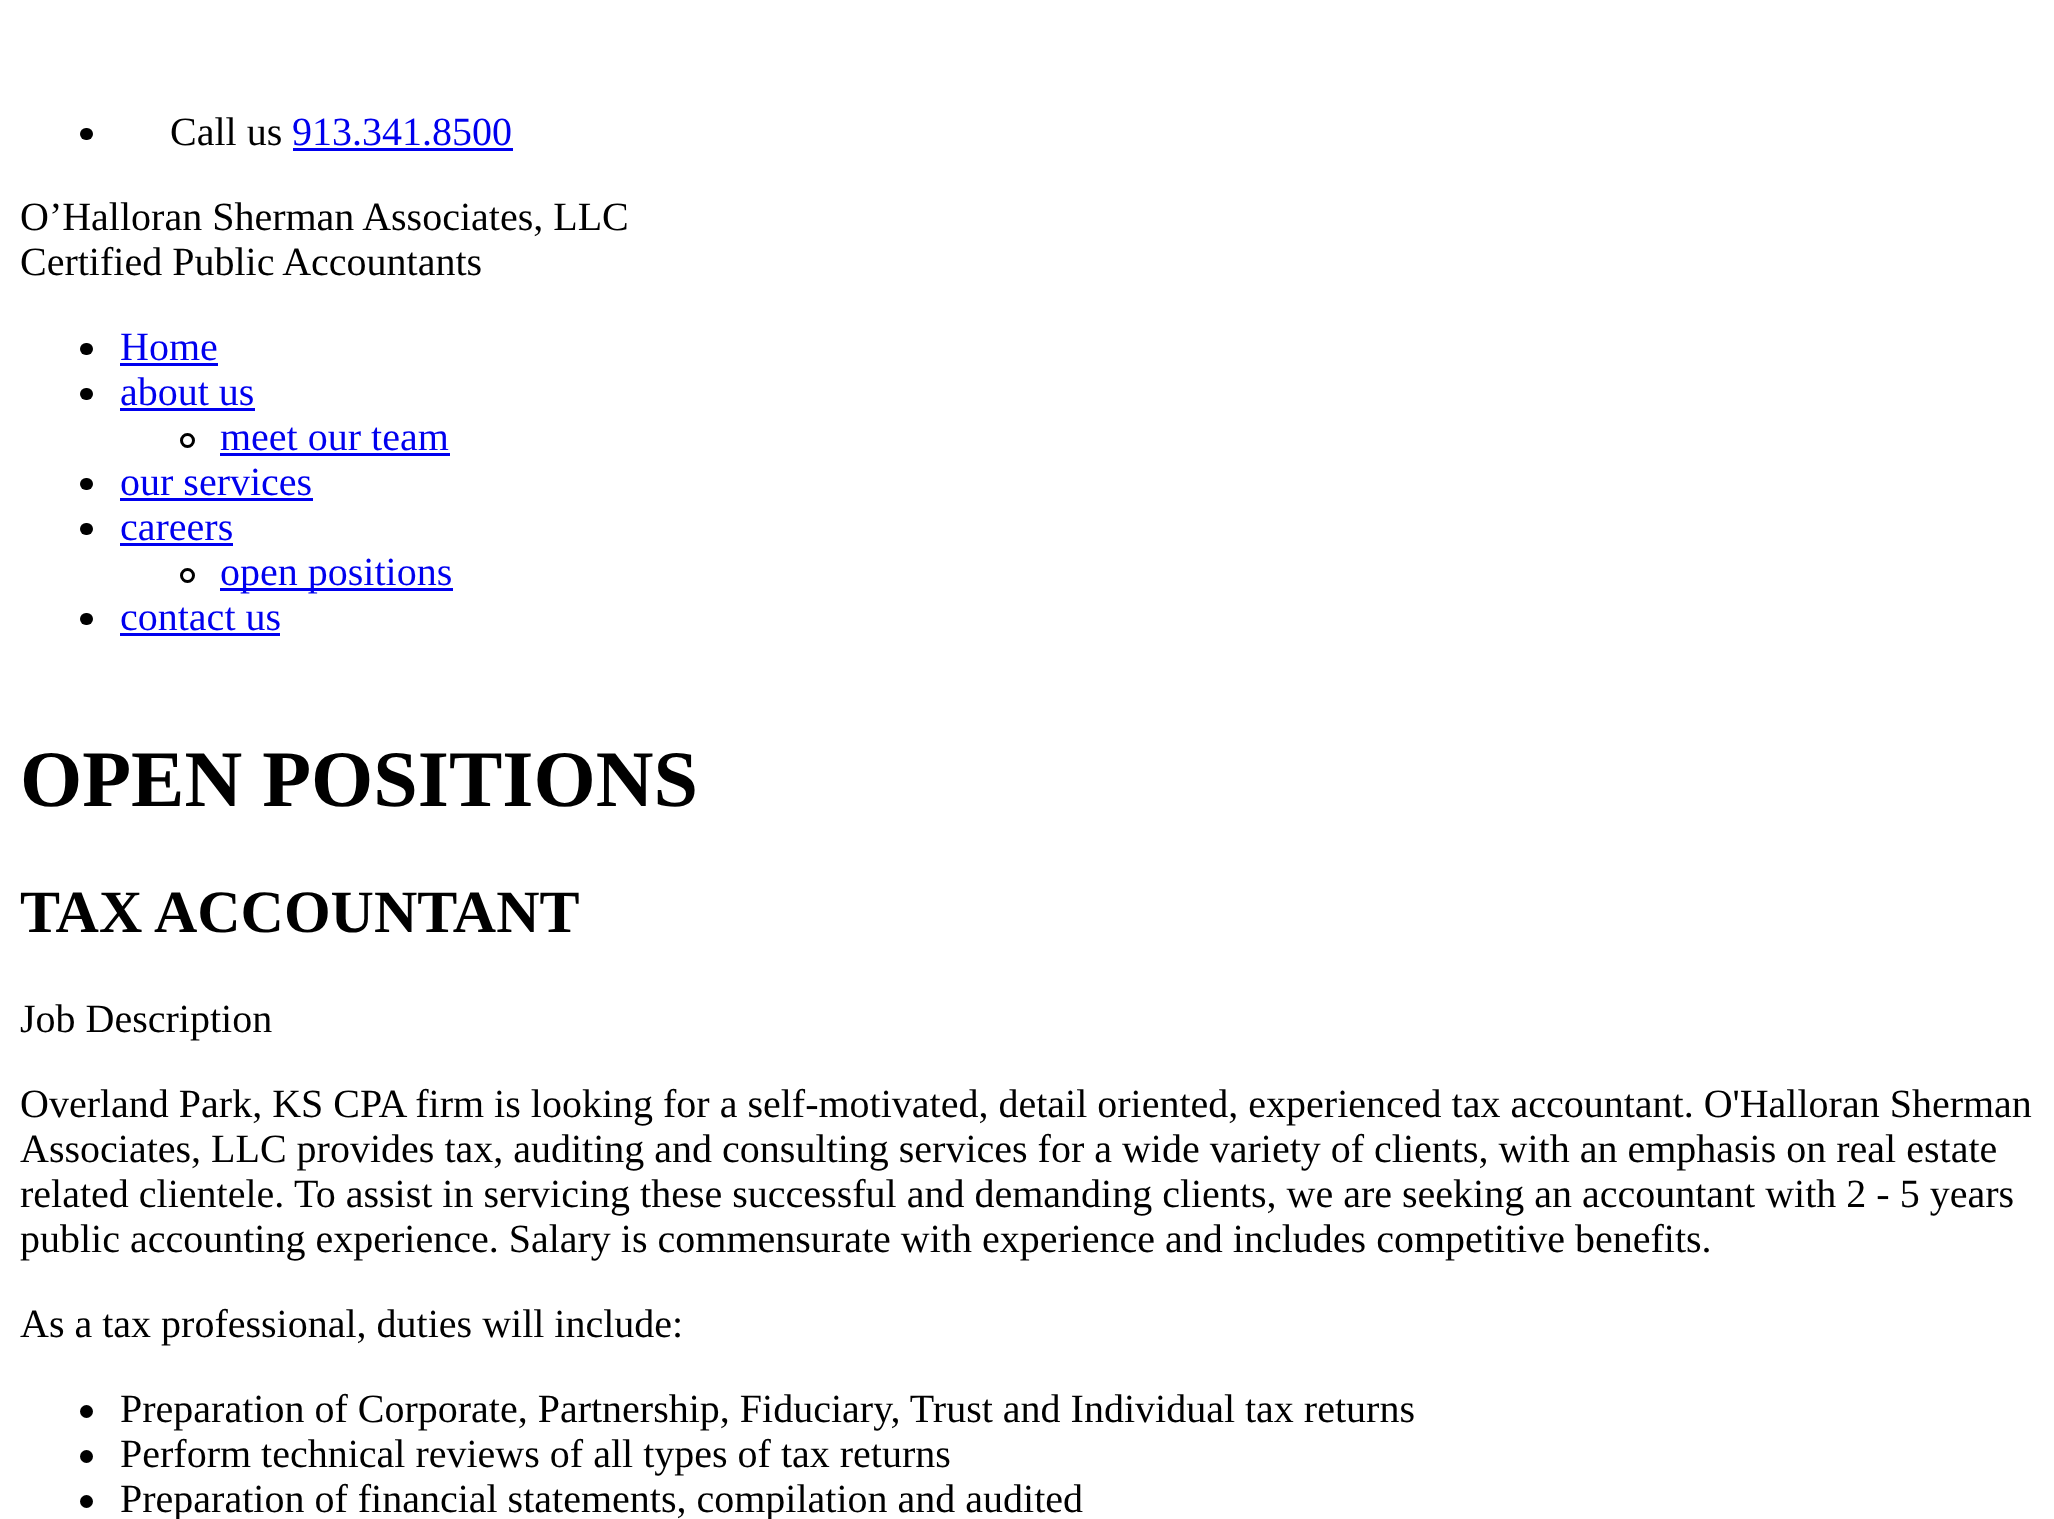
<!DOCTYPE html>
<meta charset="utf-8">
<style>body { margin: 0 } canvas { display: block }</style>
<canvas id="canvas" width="2054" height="1519"></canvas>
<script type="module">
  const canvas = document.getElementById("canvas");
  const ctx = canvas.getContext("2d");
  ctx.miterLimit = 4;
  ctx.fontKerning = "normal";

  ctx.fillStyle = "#ffffff";
  ctx.fillRect(0, 0, 2054, 1519);
  ctx.fillStyle = "#000000";
  ctx.beginPath();
  ctx.roundRect(80, 128, 13, 12, 6);
  ctx.fill();
  ctx.font = "40px Liberation Serif";
  ctx.fillText("Call us", 170, 145);
  ctx.fillStyle = "#0000ee";
  ctx.fillText("913.341.8500", 292, 145);
  ctx.fillRect(293, 148, 220, 3);
  ctx.fillStyle = "#000000";
  ctx.fillText("O’Halloran Sherman Associates, LLC", 20, 230);
  ctx.fillText("Certified Public Accountants", 20, 275);
  ctx.beginPath();
  ctx.roundRect(80, 343, 13, 12, 6);
  ctx.fill();
  ctx.fillStyle = "#0000ee";
  ctx.fillText("Home", 120, 360);
  ctx.fillRect(120, 363, 98, 3);
  ctx.fillStyle = "#000000";
  ctx.beginPath();
  ctx.roundRect(80, 388, 13, 12, 6);
  ctx.fill();
  ctx.fillStyle = "#0000ee";
  ctx.fillText("about us", 120, 405);
  ctx.fillRect(120, 408, 135, 3);
  ctx.beginPath();
  ctx.arc(187.5, 440.5, 6, 0, Math.PI * 2);
  ctx.strokeStyle = "#000000";
  ctx.lineWidth = 3;
  ctx.stroke();
  ctx.fillText("meet our team", 220, 450);
  ctx.fillRect(220, 453, 230, 3);
  ctx.fillStyle = "#000000";
  ctx.beginPath();
  ctx.roundRect(80, 478, 13, 12, 6);
  ctx.fill();
  ctx.fillStyle = "#0000ee";
  ctx.fillText("our services", 120, 495);
  ctx.fillRect(120, 498, 193, 3);
  ctx.fillStyle = "#000000";
  ctx.beginPath();
  ctx.roundRect(80, 523, 13, 12, 6);
  ctx.fill();
  ctx.fillStyle = "#0000ee";
  ctx.fillText("careers", 120, 540);
  ctx.fillRect(120, 543, 113, 3);
  ctx.beginPath();
  ctx.arc(187.5, 575.5, 6, 0, Math.PI * 2);
  ctx.stroke();
  ctx.fillRect(220, 588, 233, 3);
  ctx.fillText("open positions", 220, 585);
  ctx.fillStyle = "#000000";
  ctx.beginPath();
  ctx.roundRect(80, 613, 13, 12, 6);
  ctx.fill();
  ctx.fillStyle = "#0000ee";
  ctx.fillText("contact us", 120, 630);
  ctx.fillRect(120, 633, 160, 3);
  ctx.font = "bold 80px Liberation Serif";
  ctx.fillStyle = "#000000";
  ctx.fillText("OPEN POSITIONS", 20, 806);
  ctx.font = "bold 60px Liberation Serif";
  ctx.fillText("TAX ACCOUNTANT", 20, 932);
  ctx.font = "40px Liberation Serif";
  ctx.fillText("Job Description", 20, 1032);
  ctx.fillText("Overland Park, KS CPA firm is looking for a self-motivated, detail oriented, experienced tax accountant. O'Halloran Sherman", 20, 1117);
  ctx.fillText("Associates, LLC provides tax, auditing and consulting services for a wide variety of clients, with an emphasis on real estate", 20, 1162);
  ctx.fillText("related clientele.", 20, 1207);
  ctx.fillText("To assist in servicing these successful and demanding clients, we are seeking an accountant with 2 - 5 years", 294, 1207);
  ctx.fillText("public accounting experience. Salary is commensurate with experience and includes competitive benefits.", 20, 1252);
  ctx.fillText("As a tax professional, duties will include:", 20, 1337);
  ctx.beginPath();
  ctx.arc(86.5, 1411.5, 6.5, 0, Math.PI * 2);
  ctx.fill();
  ctx.fillText("Preparation of Corporate, Partnership, Fiduciary, Trust and Individual tax returns", 120, 1422);
  ctx.beginPath();
  ctx.arc(86.5, 1456.5, 6.5, 0, Math.PI * 2);
  ctx.fill();
  ctx.fillText("Perform technical reviews of all types of tax returns", 120, 1467);
  ctx.beginPath();
  ctx.arc(86.5, 1501.5, 6.5, 0, Math.PI * 2);
  ctx.fill();
  ctx.fillText("Preparation of financial statements, compilation and audited", 120, 1512);
</script>
